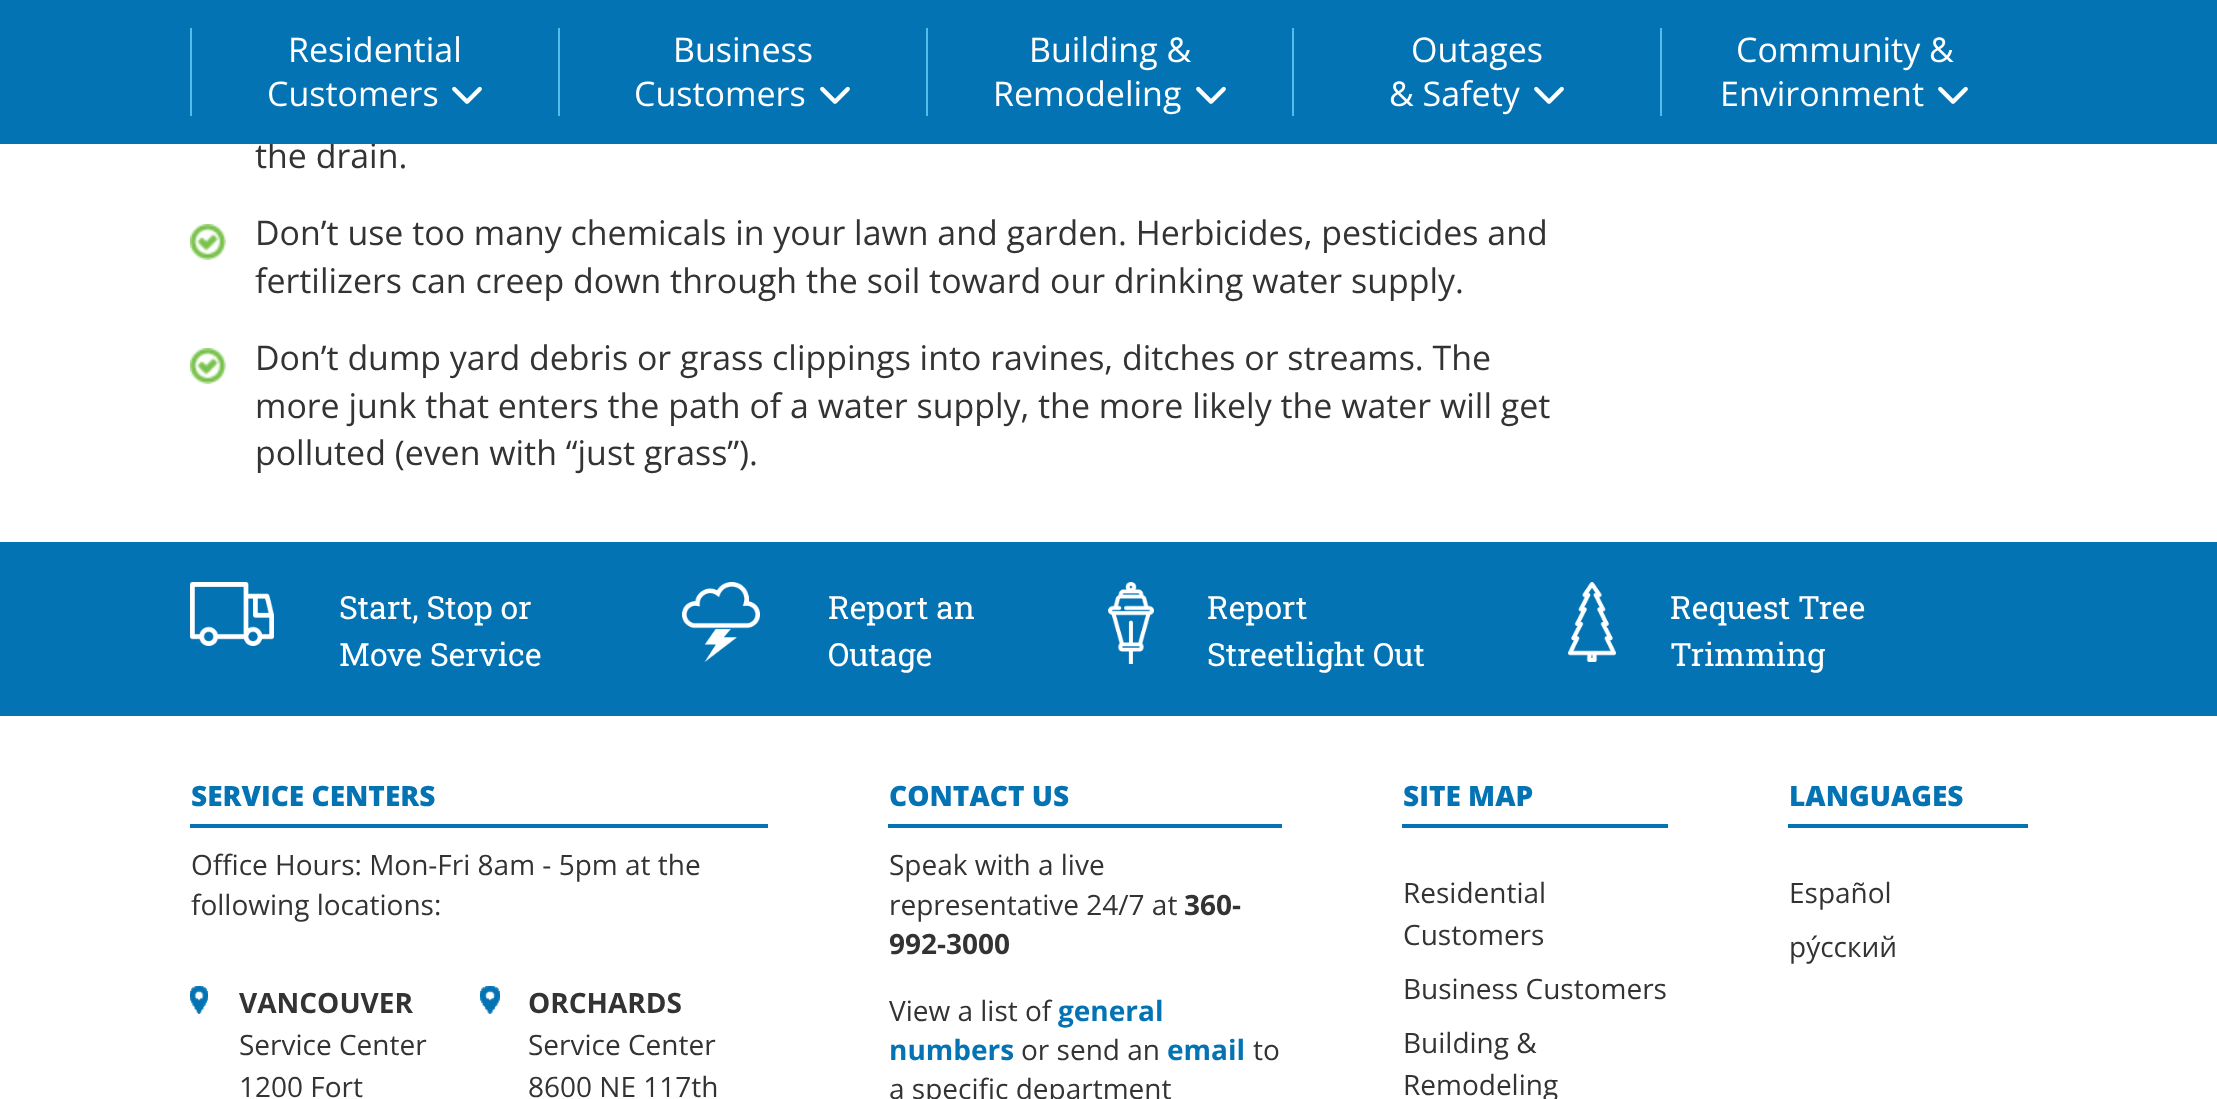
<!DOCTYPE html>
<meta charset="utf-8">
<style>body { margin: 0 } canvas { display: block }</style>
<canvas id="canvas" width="2217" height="1099"></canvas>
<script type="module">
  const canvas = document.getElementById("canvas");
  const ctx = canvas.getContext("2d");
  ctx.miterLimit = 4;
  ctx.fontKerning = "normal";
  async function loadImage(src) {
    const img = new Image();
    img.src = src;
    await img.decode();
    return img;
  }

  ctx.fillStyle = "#ffffff";
  ctx.fillRect(0, 0, 2217, 1099);
  ctx.font = "33.9px Open Sans";
  ctx.fillStyle = "#333333";
  ctx.fillText("the drain.", 255, 168);
  ctx.fillStyle = "#0473b4";
  ctx.fillRect(0, 0, 2217, 144);
  ctx.fillStyle = "#52beeb";
  ctx.fillRect(190, 28, 2, 88);
  ctx.font = "34px Open Sans";
  ctx.fillStyle = "#ffffff";
  ctx.fillText("Residential", 288, 62);
  ctx.fillText("Customers", 267, 106);
  ctx.drawImage(await loadImage("img1.png"), 452, 86, 30, 18);
  ctx.fillStyle = "#52beeb";
  ctx.fillRect(558, 28, 2, 88);
  ctx.fillStyle = "#ffffff";
  ctx.fillText("Business", 673, 62);
  ctx.fillText("Customers", 634, 106);
  ctx.drawImage(await loadImage("img1.png"), 820, 86, 30, 18);
  ctx.fillStyle = "#52beeb";
  ctx.fillRect(926, 28, 2, 88);
  ctx.fillStyle = "#ffffff";
  ctx.fillText("Building &", 1029, 62);
  ctx.fillText("Remodeling", 993, 106);
  ctx.drawImage(await loadImage("img1.png"), 1196, 86, 30, 18);
  ctx.fillStyle = "#52beeb";
  ctx.fillRect(1292, 28, 2, 88);
  ctx.fillStyle = "#ffffff";
  ctx.fillText("Outages", 1411, 62);
  ctx.fillText("& Safety", 1389, 106);
  ctx.drawImage(await loadImage("img1.png"), 1534, 86, 30, 18);
  ctx.fillStyle = "#52beeb";
  ctx.fillRect(1660, 28, 2, 88);
  ctx.fillStyle = "#ffffff";
  ctx.fillText("Community &", 1736, 62);
  ctx.fillText("Environment", 1720, 106);
  ctx.drawImage(await loadImage("img1.png"), 1938, 86, 30, 18);
  ctx.drawImage(await loadImage("img2.png"), 190, 224, 36, 36);
  ctx.font = "33.9px Open Sans";
  ctx.fillStyle = "#333333";
  ctx.fillText("Don’t use too many chemicals in your lawn and garden. Herbicides, pesticides and", 255, 245);
  ctx.fillText("fertilizers can creep down through the soil toward our drinking water supply.", 255, 293);
  ctx.drawImage(await loadImage("img2.png"), 190, 348, 36, 36);
  ctx.fillText("Don’t dump yard debris or grass clippings into ravines, ditches or streams. The", 255, 370);
  ctx.fillText("more junk that enters the path of a water supply, the more likely the water will get", 255, 418);
  ctx.fillText("polluted (even with “just grass”).", 255, 465);
  ctx.fillStyle = "#0473b4";
  ctx.fillRect(0, 542, 2217, 174);
  ctx.drawImage(await loadImage("img3.png"), 190, 582, 84, 64);
  ctx.font = "32px Roboto Slab";
  ctx.fillStyle = "#ffffff";
  ctx.fillText("Start, Stop or", 339, 619);
  ctx.fillText("Move Service", 339, 666);
  ctx.drawImage(await loadImage("img4.png"), 682, 582, 78, 80);
  ctx.fillText("Report an", 828, 619);
  ctx.fillText("Outage", 828, 666);
  ctx.drawImage(await loadImage("img5.png"), 1108, 582, 46, 82);
  ctx.fillText("Report", 1207, 619);
  ctx.fillText("Streetlight Out", 1207, 666);
  ctx.drawImage(await loadImage("img6.png"), 1568, 582, 48, 80);
  ctx.fillText("Request Tree", 1670, 619);
  ctx.fillText("Trimming", 1670, 666);
  ctx.fillStyle = "#0473b4";
  ctx.fillRect(190, 824, 578, 4);
  ctx.font = "800 28px Open Sans";
  ctx.fillText("SERVICE CENTERS", 191, 806);
  ctx.font = "28px Open Sans";
  ctx.fillStyle = "#333333";
  ctx.fillText("Office Hours: Mon-Fri 8am - 5pm at the", 191, 875);
  ctx.fillText("following locations:", 191, 915);
  ctx.drawImage(await loadImage("img7.png"), 190, 986, 18, 28);
  ctx.font = "bold 28px Open Sans";
  ctx.fillText("VANCOUVER", 239, 1013);
  ctx.font = "28px Open Sans";
  ctx.fillText("Service Center", 239, 1055);
  ctx.fillText("1200 Fort", 239, 1097);
  ctx.drawImage(await loadImage("img8.png"), 480, 986, 20, 28);
  ctx.font = "bold 28px Open Sans";
  ctx.fillText("ORCHARDS", 528, 1013);
  ctx.font = "28px Open Sans";
  ctx.fillText("Service Center", 528, 1055);
  ctx.fillText("8600 NE 117th", 528, 1097);
  ctx.fillStyle = "#0473b4";
  ctx.fillRect(888, 824, 394, 4);
  ctx.font = "800 28px Open Sans";
  ctx.fillText("CONTACT US", 889, 806);
  ctx.font = "28px Open Sans";
  ctx.fillStyle = "#333333";
  ctx.fillText("Speak with a live", 889, 875);
  ctx.fillText("representative 24/7 at", 889, 915);
  ctx.font = "bold 28px Open Sans";
  ctx.fillText("360-", 1184, 915);
  ctx.fillText("992-3000", 889, 954);
  ctx.font = "28px Open Sans";
  ctx.fillText("View a list of", 889, 1021);
  ctx.font = "bold 28px Open Sans";
  ctx.fillStyle = "#0473b4";
  ctx.fillText("general", 1058, 1021);
  ctx.fillText("numbers", 889, 1060);
  ctx.font = "28px Open Sans";
  ctx.fillStyle = "#333333";
  ctx.fillText("or send an", 1021, 1060);
  ctx.font = "bold 28px Open Sans";
  ctx.fillStyle = "#0473b4";
  ctx.fillText("email", 1167, 1060);
  ctx.font = "28px Open Sans";
  ctx.fillStyle = "#333333";
  ctx.fillText("to", 1253, 1060);
  ctx.fillText("a specific department", 889, 1099);
  ctx.fillStyle = "#0473b4";
  ctx.fillRect(1402, 824, 266, 4);
  ctx.font = "800 28px Open Sans";
  ctx.fillText("SITE MAP", 1403, 806);
  ctx.font = "28px Open Sans";
  ctx.fillStyle = "#333333";
  ctx.fillText("Residential", 1403, 903);
  ctx.fillText("Customers", 1403, 945);
  ctx.fillText("Business Customers", 1403, 999);
  ctx.fillText("Building &", 1403, 1053);
  ctx.fillText("Remodeling", 1403, 1095);
  ctx.fillStyle = "#0473b4";
  ctx.fillRect(1788, 824, 240, 4);
  ctx.font = "800 28px Open Sans";
  ctx.fillText("LANGUAGES", 1789, 806);
  ctx.font = "28px Open Sans";
  ctx.fillStyle = "#333333";
  ctx.fillText("Español", 1789, 903);
  ctx.fillText("ру́сский", 1789, 957);
</script>
